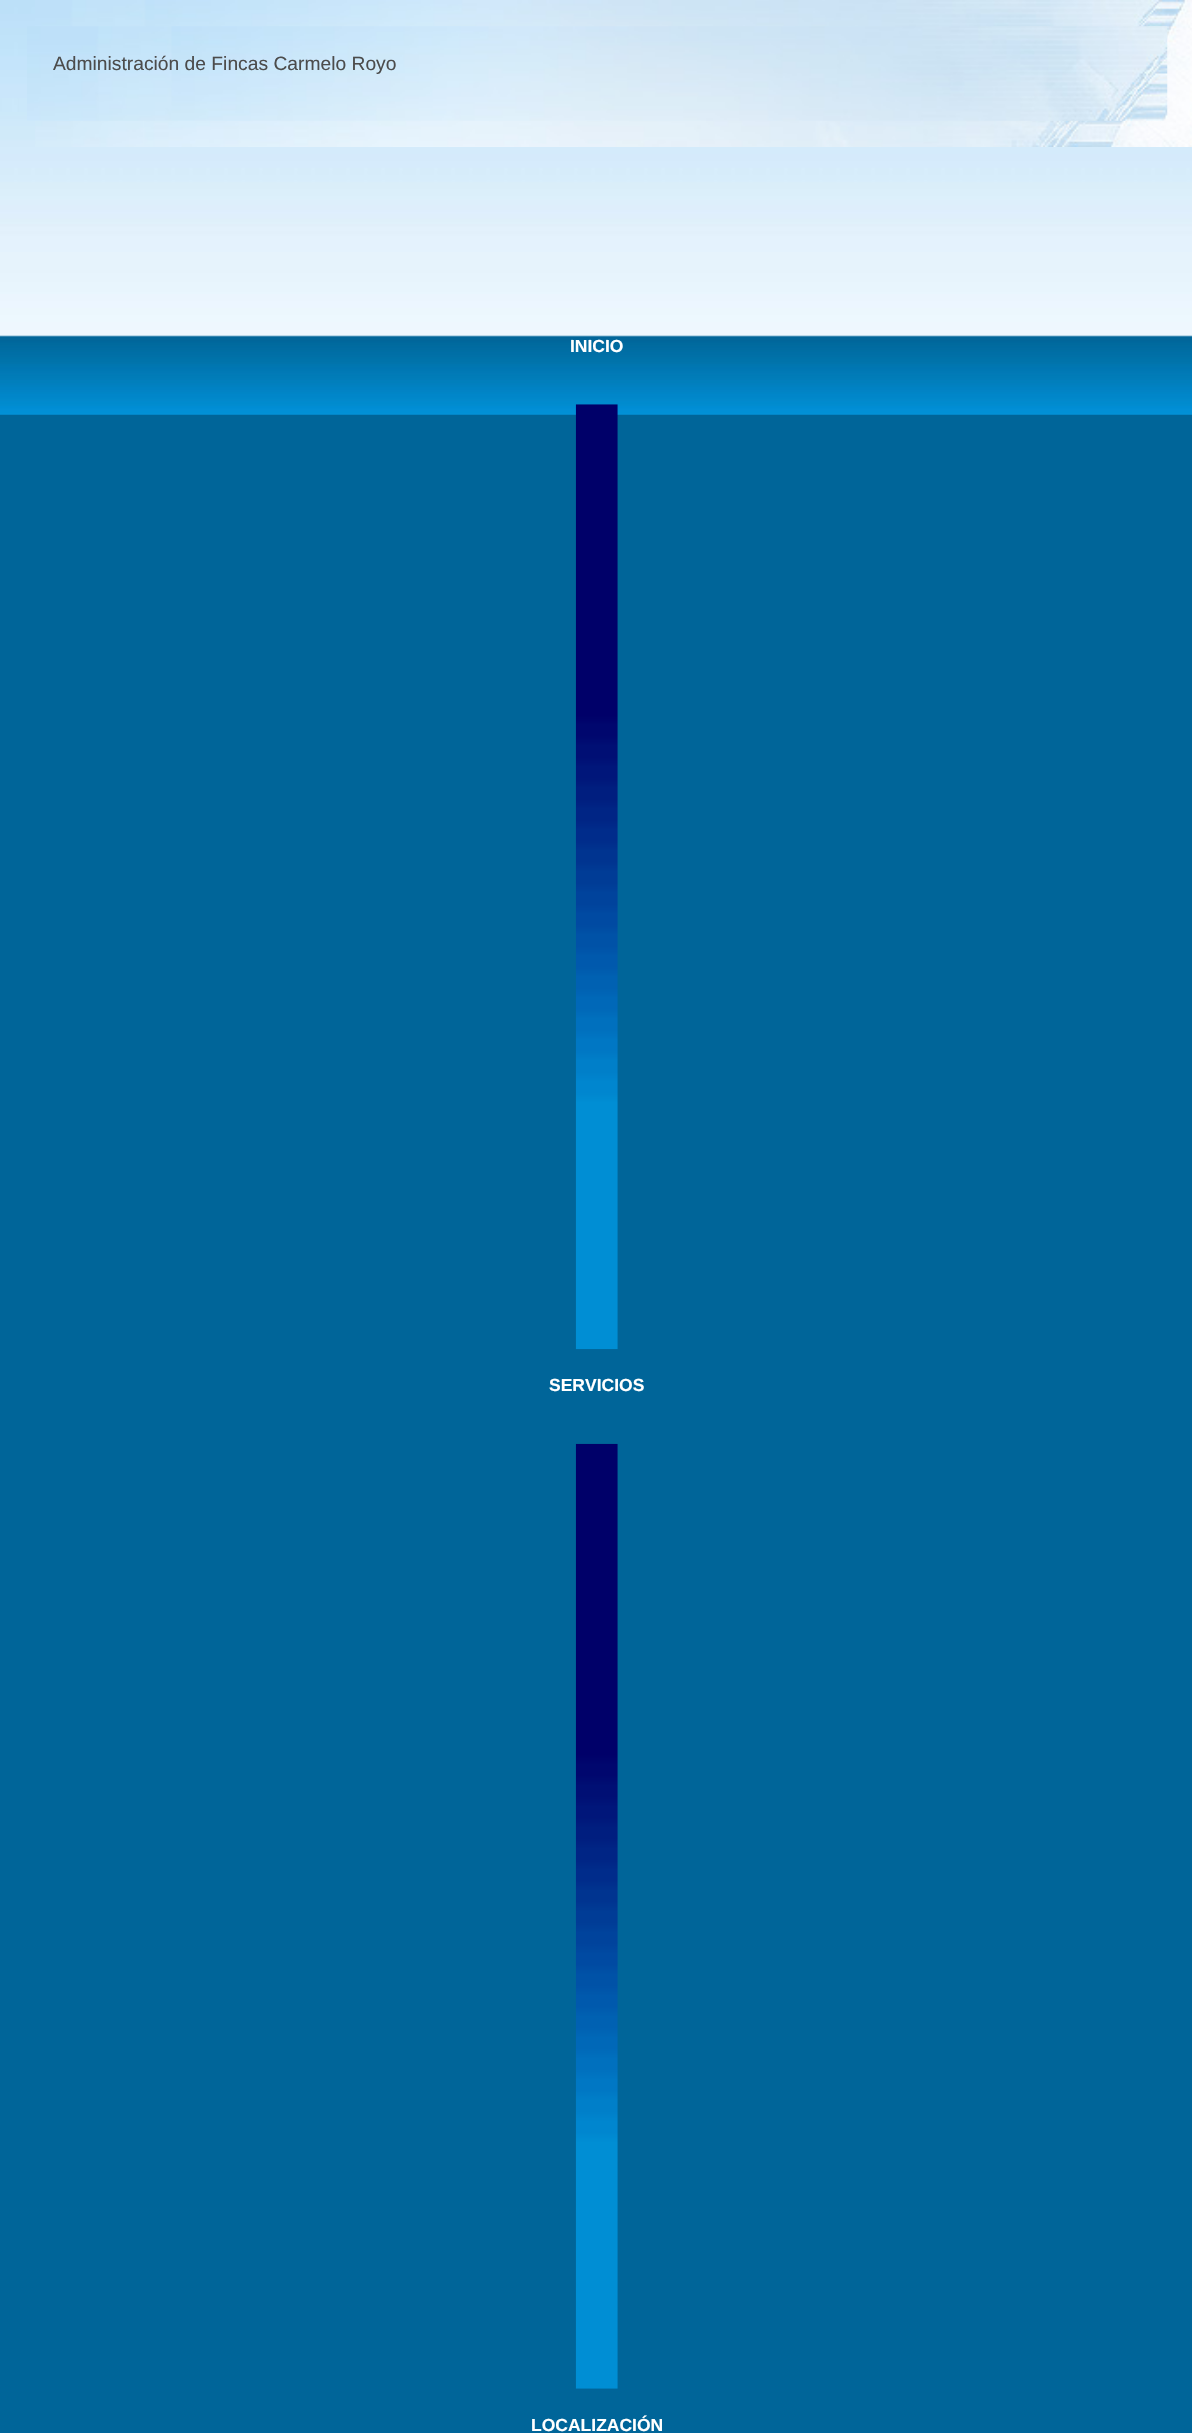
#include "include/core/SkBlurTypes.h"
#include "include/core/SkCanvas.h"
#include "include/core/SkData.h"
#include "include/core/SkFont.h"
#include "include/core/SkFontMgr.h"
#include "include/core/SkImage.h"
#include "include/core/SkMaskFilter.h"
#include "include/core/SkPaint.h"
#include "include/core/SkPathBuilder.h"
#include "include/core/SkTextBlob.h"
#include "include/effects/SkDashPathEffect.h"
#include "include/effects/SkGradientShader.h"
#include "include/utils/SkParsePath.h"

extern sk_sp<SkFontMgr> fontMgr;

void draw(SkCanvas* canvas) {
    SkPaint p;
    p.setAntiAlias(true);
    auto font = [&](const char* family, int weight, float size, bool italic = false) {
        SkFontStyle style(weight, SkFontStyle::kNormal_Width,
            italic ? SkFontStyle::kItalic_Slant : SkFontStyle::kUpright_Slant);
        SkFont result(fontMgr->matchFamilyStyle(family, style), size);
        result.setSubpixel(true);
        return result;
    };
    auto drawPhoto = [&](const char* path, float l, float t, float r, float b) {
        auto image = SkImages::DeferredFromEncodedData(SkData::MakeFromFileName(path));
        canvas->drawImageRect(image, SkRect::MakeLTRB(l, t, r, b), SkSamplingOptions());
    };
    canvas->clear(0xFF006599);
    drawPhoto("media/1.png", 0, 0, 1192, 415);
    drawPhoto("media/2.png", 35, 0, 1192, 147);
    drawPhoto("media/3.png", 27, 26, 1168, 121);
    auto font1 = font("Liberation Sans", 400, 19.25f);
    p.setColor(0xFF4C4C4C);
    canvas->drawString("Administración de Fincas Carmelo Royo", 53, 70, font1, p);
    auto font2 = font("Liberation Sans", 700, 17.5f);
    p.setColor(0xFFFFFFFF);
    canvas->drawString("INICIO", 570, 352, font2, p);
    drawPhoto("media/4.png", 575, 404, 618, 1350);
    canvas->drawString("SERVICIOS", 549, 1391, font2, p);
    drawPhoto("media/5.png", 575, 1443, 618, 2389);
    canvas->drawString("LOCALIZACIÓN", 531, 2431, font2, p);
}
